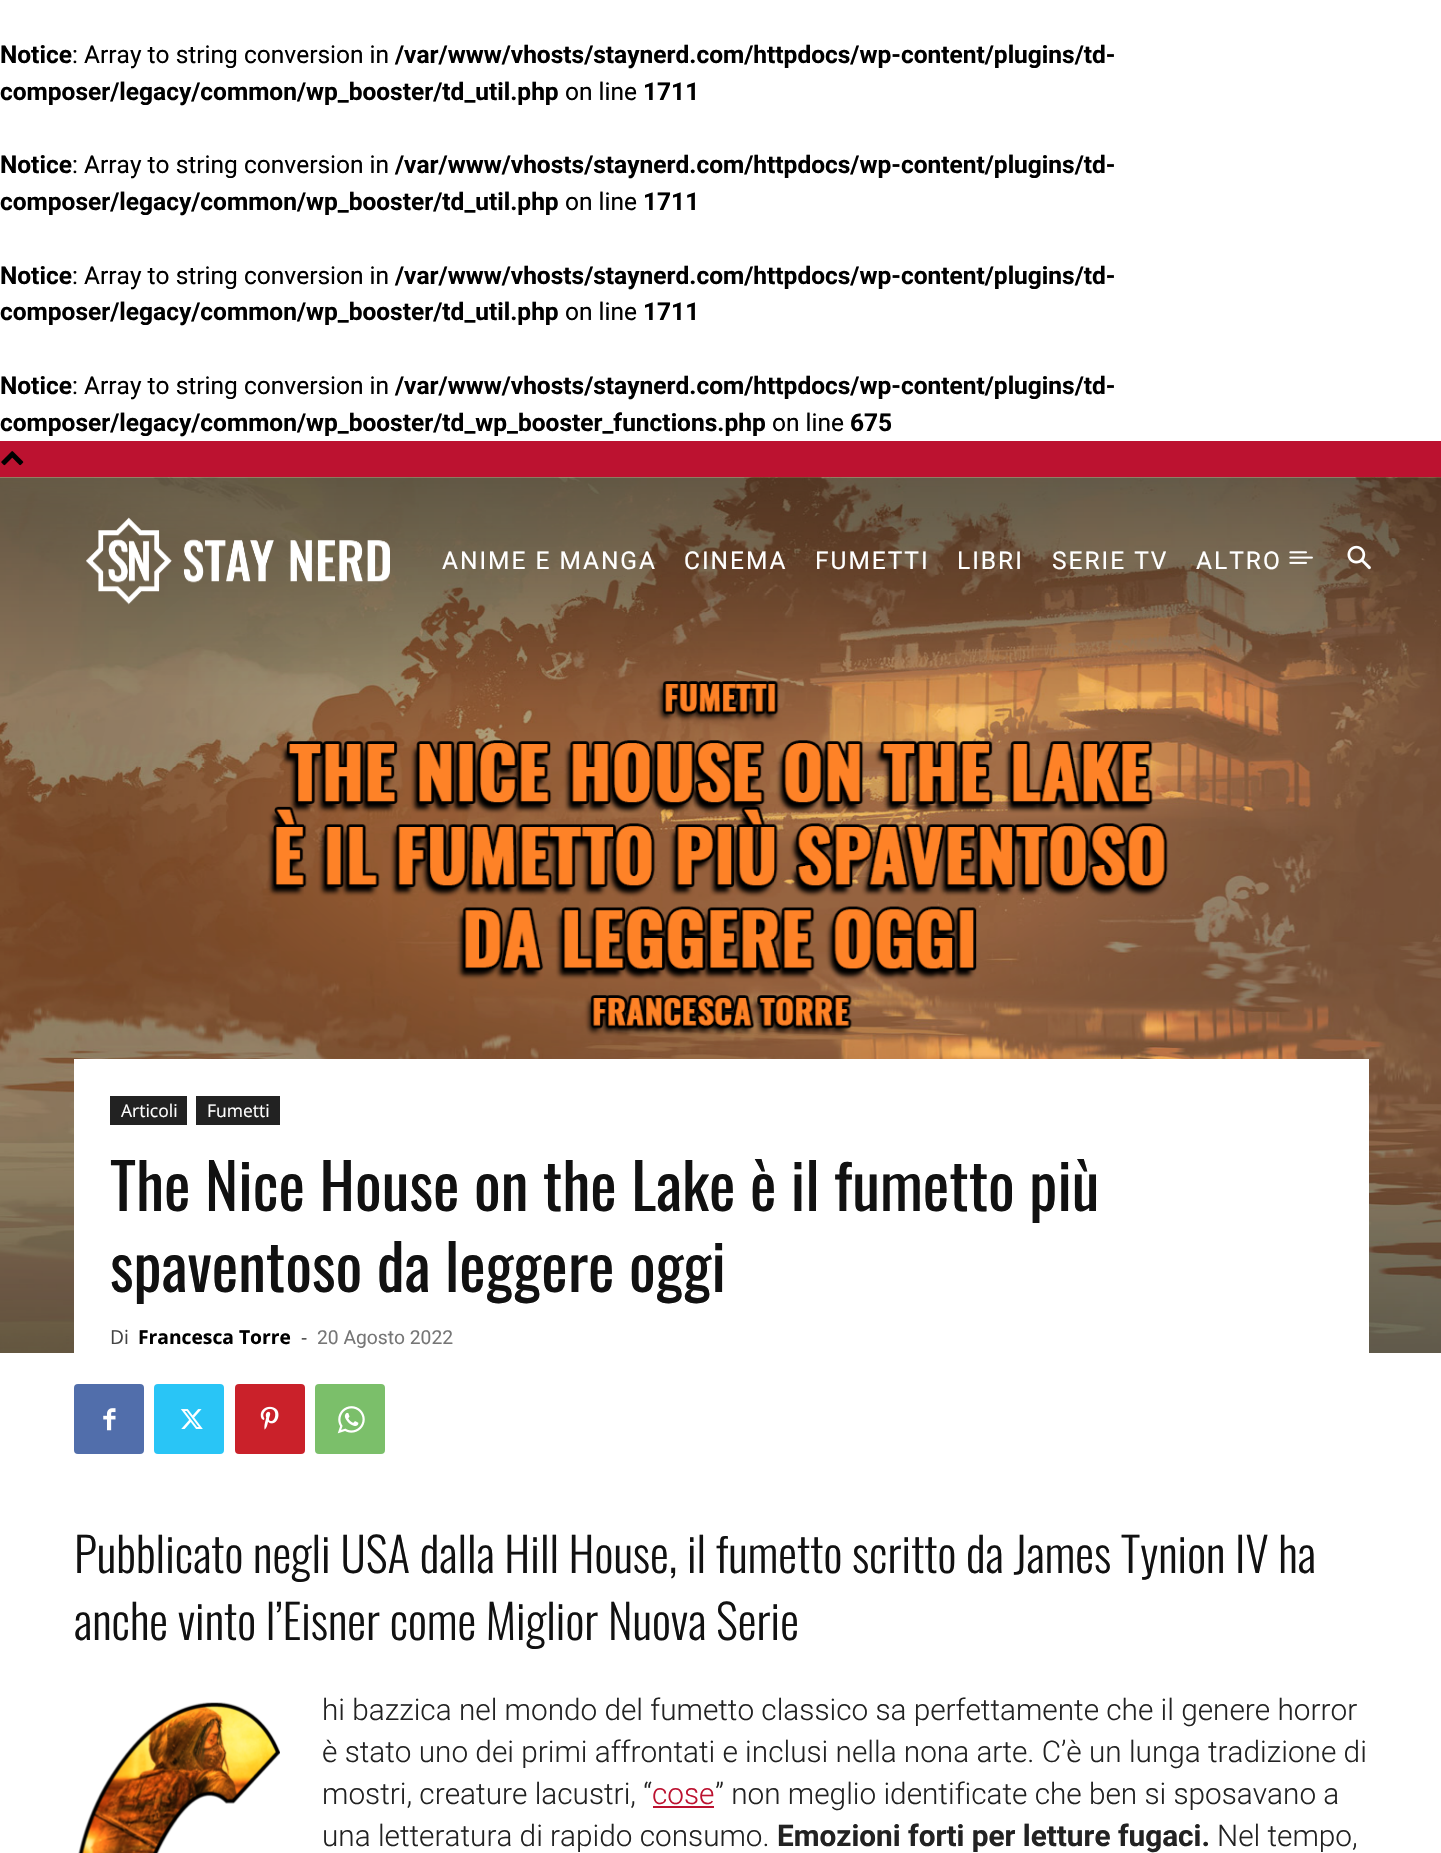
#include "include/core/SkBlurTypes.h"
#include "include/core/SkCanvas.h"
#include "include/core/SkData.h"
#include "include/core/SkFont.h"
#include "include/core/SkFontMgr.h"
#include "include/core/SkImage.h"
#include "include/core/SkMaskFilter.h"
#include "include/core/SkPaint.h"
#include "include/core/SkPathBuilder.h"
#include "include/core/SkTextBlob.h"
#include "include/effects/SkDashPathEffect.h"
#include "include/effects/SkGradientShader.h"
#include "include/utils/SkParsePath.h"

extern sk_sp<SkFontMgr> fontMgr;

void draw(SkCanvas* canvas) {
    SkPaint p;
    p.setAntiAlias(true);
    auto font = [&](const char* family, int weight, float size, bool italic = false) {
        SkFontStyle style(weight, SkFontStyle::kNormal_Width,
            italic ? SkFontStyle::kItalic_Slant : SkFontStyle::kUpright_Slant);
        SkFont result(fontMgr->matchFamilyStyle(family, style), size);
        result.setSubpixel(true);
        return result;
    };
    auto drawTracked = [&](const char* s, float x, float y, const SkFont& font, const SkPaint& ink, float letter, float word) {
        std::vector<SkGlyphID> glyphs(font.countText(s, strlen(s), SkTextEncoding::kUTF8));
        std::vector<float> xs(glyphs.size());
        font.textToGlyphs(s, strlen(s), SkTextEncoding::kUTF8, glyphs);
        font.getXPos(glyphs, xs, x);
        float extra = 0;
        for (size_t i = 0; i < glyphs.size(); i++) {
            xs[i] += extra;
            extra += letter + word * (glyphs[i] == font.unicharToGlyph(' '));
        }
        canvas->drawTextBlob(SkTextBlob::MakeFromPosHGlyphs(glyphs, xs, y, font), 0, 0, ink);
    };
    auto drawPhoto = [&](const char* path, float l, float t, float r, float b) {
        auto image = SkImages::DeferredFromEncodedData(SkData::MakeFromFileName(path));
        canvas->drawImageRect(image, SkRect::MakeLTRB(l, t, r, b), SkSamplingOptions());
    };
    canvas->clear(0xFFFFFFFF);
    auto font1 = font("Roboto", 700, 24.5f);
    p.setColor(0xFF000000);
    canvas->drawString("Notice", 0, 63, font1, p);
    auto font2 = font("Roboto", 400, 24.5f);
    canvas->drawString(": Array to string conversion in", 72, 63, font2, p);
    canvas->drawString("/var/www/vhosts/staynerd.com/httpdocs/wp-content/plugins/td-", 395, 63, font1, p);
    canvas->drawString("composer/legacy/common/wp_booster/td_util.php", 0, 100, font1, p);
    canvas->drawString("on line", 565, 100, font2, p);
    canvas->drawString("1711", 643, 100, font1, p);
    canvas->drawString("Notice", 0, 173, font1, p);
    canvas->drawString(": Array to string conversion in", 72, 173, font2, p);
    canvas->drawString("/var/www/vhosts/staynerd.com/httpdocs/wp-content/plugins/td-", 395, 173, font1, p);
    canvas->drawString("composer/legacy/common/wp_booster/td_util.php", 0, 210, font1, p);
    canvas->drawString("on line", 565, 210, font2, p);
    canvas->drawString("1711", 643, 210, font1, p);
    canvas->drawString("Notice", 0, 284, font1, p);
    canvas->drawString(": Array to string conversion in", 72, 284, font2, p);
    canvas->drawString("/var/www/vhosts/staynerd.com/httpdocs/wp-content/plugins/td-", 395, 284, font1, p);
    canvas->drawString("composer/legacy/common/wp_booster/td_util.php", 0, 320, font1, p);
    canvas->drawString("on line", 565, 320, font2, p);
    canvas->drawString("1711", 643, 320, font1, p);
    canvas->drawString("Notice", 0, 394, font1, p);
    canvas->drawString(": Array to string conversion in", 72, 394, font2, p);
    canvas->drawString("/var/www/vhosts/staynerd.com/httpdocs/wp-content/plugins/td-", 395, 394, font1, p);
    canvas->drawString("composer/legacy/common/wp_booster/td_wp_booster_functions.php", 0, 431, font1, p);
    canvas->drawString("on line", 772, 431, font2, p);
    canvas->drawString("675", 850, 431, font1, p);
    p.setColor(0xFFBC1230);
    canvas->drawRect(SkRect::MakeLTRB(0, 441, 1441, 477), p);
    drawPhoto("media/1.png", 1, 451, 24, 466);
    drawPhoto("media/5.png", 0, 477, 1441, 1353);
    drawPhoto("media/2.png", 86, 517, 390, 605);
    p.setColor(0xFFFFFFFF);
    {
        const struct { const char* s; float x, y; } items[] = {
            {"ANIME E MANGA", 442, 569},
            {"CINEMA", 684, 569},
            {"FUMETTI", 815, 569},
            {"LIBRI", 957, 569},
            {"SERIE TV", 1052, 569},
            {"ALTRO", 1196, 569},
        };
        for (auto [s, x, y] : items) {
            drawTracked(s, x, y, font2, p, 2, 0);
        }
    }
    drawPhoto("media/3.png", 1289, 551, 1313, 564);
    drawPhoto("media/4.png", 1347, 545, 1371, 570);
    canvas->drawRect(SkRect::MakeLTRB(74, 1059, 1369, 1353), p);
    p.setColor(0xFF222222);
    canvas->drawRect(SkRect::MakeLTRB(110, 1096, 187, 1125), p);
    auto font3 = font("Open Sans", 400, 17.5f);
    p.setColor(0xFFFFFFFF);
    canvas->drawString("Articoli", 121, 1117, font3, p);
    p.setColor(0xFF222222);
    canvas->drawRect(SkRect::MakeLTRB(196, 1096, 280, 1125), p);
    p.setColor(0xFFFFFFFF);
    canvas->drawString("Fumetti", 207, 1117, font3, p);
    auto font4 = font("Oswald", 400, 63);
    p.setColor(0xFF111111);
    canvas->drawString("The Nice House on the Lake è il fumetto più", 110, 1211, font4, p);
    canvas->drawString("spaventoso da leggere oggi", 110, 1292, font4, p);
    auto font5 = font("Open Sans", 400, 19.25f);
    p.setColor(0xFF444444);
    canvas->drawString("Di", 110, 1344, font5, p);
    auto font6 = font("Open Sans", 700, 19.25f);
    p.setColor(0xFF000000);
    canvas->drawString("Francesca Torre", 138, 1344, font6, p);
    p.setColor(0xFF444444);
    canvas->drawString("-", 301, 1344, font5, p);
    auto font7 = font("Roboto", 400, 19.25f);
    p.setColor(0xFF767676);
    canvas->drawString("20 Agosto 2022", 317, 1344, font7, p);
    p.setColor(0xFF516EAB);
    canvas->drawRoundRect(SkRect::MakeLTRB(74, 1384, 144, 1454), 4, 4, p);
    drawPhoto("media/6.png", 103, 1408, 116, 1431);
    p.setColor(0xFF29C5F6);
    canvas->drawRoundRect(SkRect::MakeLTRB(154, 1384, 224, 1454), 4, 4, p);
    drawPhoto("media/7.png", 180, 1409, 203, 1429);
    p.setColor(0xFFCA212A);
    canvas->drawRoundRect(SkRect::MakeLTRB(235, 1384, 305, 1454), 4, 4, p);
    drawPhoto("media/8.png", 260, 1406, 279, 1430);
    p.setColor(0xFF7BBF6A);
    canvas->drawRoundRect(SkRect::MakeLTRB(315, 1384, 385, 1454), 4, 4, p);
    drawPhoto("media/9.png", 337, 1406, 365, 1434);
    auto font8 = font("Oswald", 300, 47.25f);
    p.setColor(0xFF111111);
    canvas->drawString("Pubblicato negli USA dalla Hill House, il fumetto scritto da James Tynion IV ha", 74, 1573, font8, p);
    canvas->drawString("anche vinto l’Eisner come Miglior Nuova Serie", 74, 1640, font8, p);
    drawPhoto("media/10.png", 78, 1702, 280, 1853);
    auto font9 = font("Roboto", 300, 29.75f);
    p.setColor(0xFF222222);
    {
        const struct { const char* s; float x, y; } items[] = {
            {"hi bazzica nel mondo del fumetto classico sa perfettamente che il genere horror", 322, 1720},
            {"è stato uno dei primi affrontati e inclusi nella nona arte. C’è un lunga tradizione di", 322, 1762},
            {"mostri, creature lacustri, “", 322, 1804},
        };
        for (auto [s, x, y] : items) {
            canvas->drawString(s, x, y, font9, p);
        }
    }
    p.setColor(0xFFBC1230);
    canvas->drawString("cose", 652, 1804, font9, p);
    canvas->drawRect(SkRect::MakeLTRB(653, 1806, 714, 1808), p);
    p.setColor(0xFF222222);
    canvas->drawString("” non meglio identificate che ben si sposavano a", 715, 1804, font9, p);
    canvas->drawString("una letteratura di rapido consumo.", 322, 1846, font9, p);
    auto font10 = font("Roboto", 700, 29.75f);
    canvas->drawString("Emozioni forti per letture fugaci.", 777, 1846, font10, p);
    canvas->drawString("Nel tempo,", 1217, 1846, font9, p);
}
